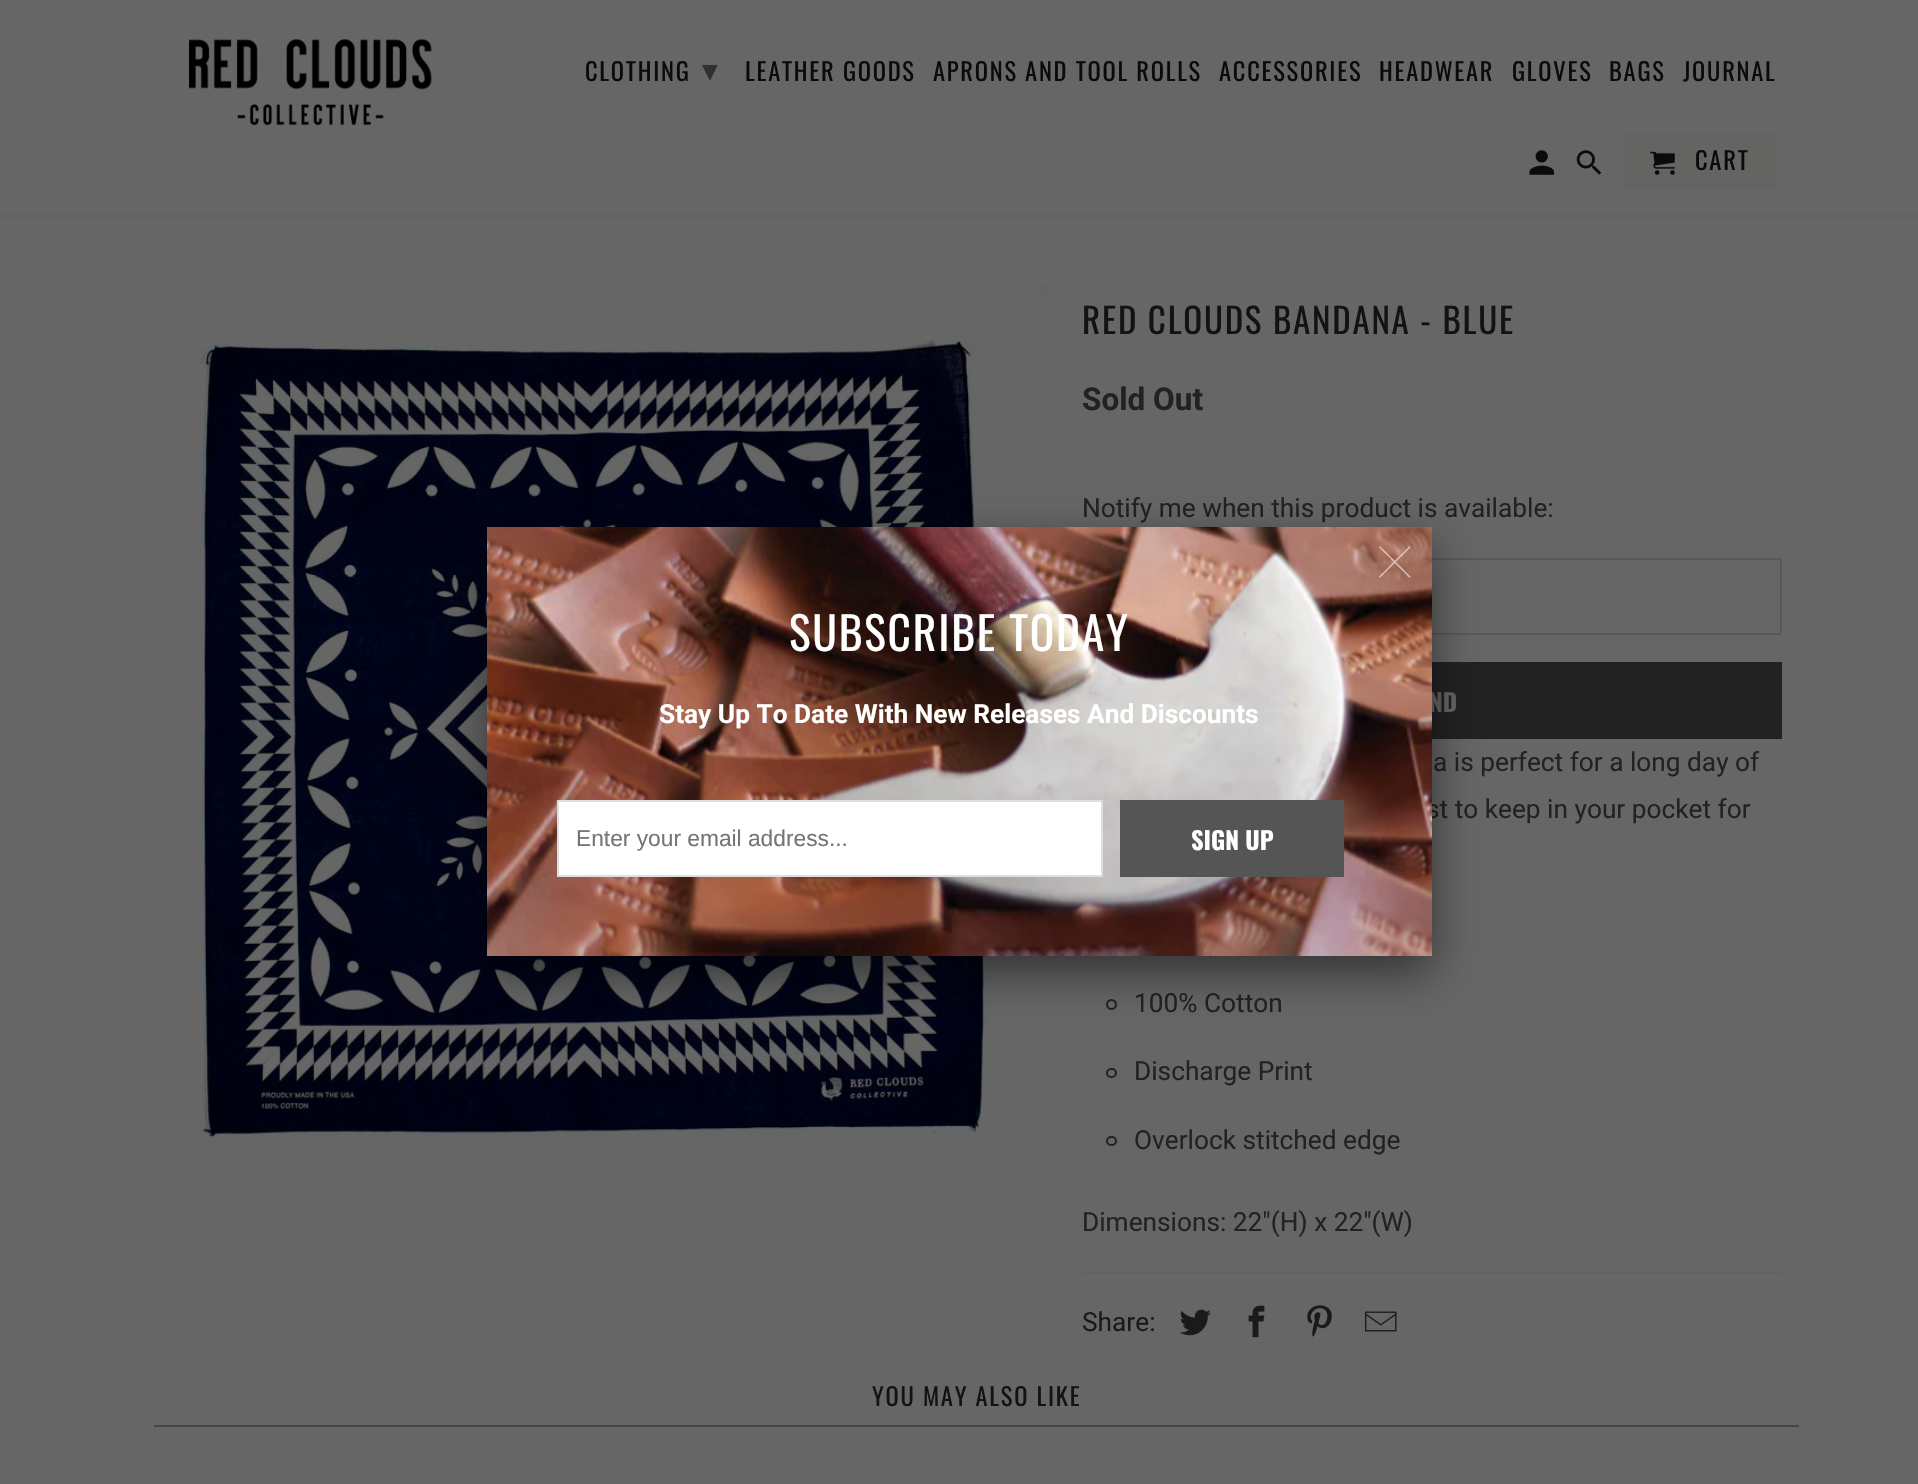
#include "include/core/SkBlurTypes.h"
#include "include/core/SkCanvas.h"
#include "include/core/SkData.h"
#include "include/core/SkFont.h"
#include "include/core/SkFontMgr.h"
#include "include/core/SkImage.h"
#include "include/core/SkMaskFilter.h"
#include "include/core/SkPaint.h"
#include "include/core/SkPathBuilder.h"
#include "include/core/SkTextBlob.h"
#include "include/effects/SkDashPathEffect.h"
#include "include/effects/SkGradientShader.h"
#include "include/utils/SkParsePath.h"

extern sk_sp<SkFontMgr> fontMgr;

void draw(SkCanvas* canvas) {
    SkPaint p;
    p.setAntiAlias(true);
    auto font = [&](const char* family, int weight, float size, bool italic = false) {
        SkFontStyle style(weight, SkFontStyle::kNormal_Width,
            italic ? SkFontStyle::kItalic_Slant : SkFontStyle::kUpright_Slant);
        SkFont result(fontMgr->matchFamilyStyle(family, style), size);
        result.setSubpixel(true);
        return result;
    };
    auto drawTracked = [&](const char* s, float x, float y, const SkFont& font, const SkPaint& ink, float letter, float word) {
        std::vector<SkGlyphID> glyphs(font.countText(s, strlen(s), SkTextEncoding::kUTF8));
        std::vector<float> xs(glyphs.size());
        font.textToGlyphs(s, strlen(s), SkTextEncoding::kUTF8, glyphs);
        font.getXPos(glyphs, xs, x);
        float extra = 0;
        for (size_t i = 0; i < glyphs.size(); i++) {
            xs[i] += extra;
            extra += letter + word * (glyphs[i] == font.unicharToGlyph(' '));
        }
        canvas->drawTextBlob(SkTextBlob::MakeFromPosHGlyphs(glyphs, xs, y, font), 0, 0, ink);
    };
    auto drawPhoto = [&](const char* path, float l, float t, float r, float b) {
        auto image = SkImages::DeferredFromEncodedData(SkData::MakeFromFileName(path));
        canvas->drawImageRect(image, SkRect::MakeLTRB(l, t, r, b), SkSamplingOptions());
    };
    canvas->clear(0xFF666666);
    p.setColor(0xFF626262);
    canvas->drawRect(SkRect::MakeLTRB(0, 215, 1918, 217), p);
    drawPhoto("media/1.png", 189, 39, 432, 126);
    auto font1 = font("Oswald", 400, 24.5f);
    p.setColor(0xFF0B0B0B);
    drawTracked("CLOTHING", 585, 81, font1, p, 1.75f, 0);
    auto font2 = font("DejaVu Sans", 400, 31.5f);
    p.setColor(0xFF303030);
    drawTracked("▾", 702, 81, font2, p, 1.75f, 0);
    p.setColor(0xFF0B0B0B);
    {
        const struct { const char* s; float x, y; } items[] = {
            {"LEATHER GOODS", 745, 81},
            {"APRONS AND TOOL ROLLS", 933, 81},
            {"ACCESSORIES", 1219, 81},
            {"HEADWEAR", 1379, 81},
            {"GLOVES", 1512, 81},
            {"BAGS", 1609, 81},
            {"JOURNAL", 1683, 81},
        };
        for (auto [s, x, y] : items) {
            drawTracked(s, x, y, font1, p, 1.75f, 0);
        }
    }
    drawPhoto("media/2.png", 1529, 150, 1554, 175);
    drawPhoto("media/3.png", 1576, 150, 1602, 175);
    p.setColor(0xFF646462);
    canvas->drawRect(SkRect::MakeLTRB(1624, 133, 1776, 189), p);
    drawPhoto("media/4.png", 1650, 151, 1675, 175);
    p.setColor(0xFF0B0B0B);
    drawTracked("CART", 1695, 170, font1, p, 1.75f, 0);
    drawPhoto("media/5.png", 137, 285, 1047, 1177);
    auto font3 = font("Oswald", 400, 35);
    p.setColor(0xFF131313);
    drawTracked("RED CLOUDS BANDANA - BLUE", 1082, 334, font3, p, 1.75f, 0);
    auto font4 = font("Roboto", 700, 31.5f);
    p.setColor(0xFF222222);
    canvas->drawString("Sold Out", 1082, 410, font4, p);
    auto font5 = font("Roboto", 400, 26.25f);
    canvas->drawString("Notify me when this product is available:", 1082, 517, font5, p);
    p.setStyle(SkPaint::kStroke_Style);
    p.setStrokeWidth(2);
    p.setColor(0xFF585A5A);
    canvas->drawRect(SkRect::MakeLTRB(1083, 559, 1781, 634), p);
    p.setStyle(SkPaint::kFill_Style);
    p.setColor(0xFF222222);
    canvas->drawRect(SkRect::MakeLTRB(1432, 662, 1782, 739), p);
    auto font6 = font("Oswald", 700, 24.5f);
    p.setColor(0xFF666666);
    canvas->drawString("ND", 1429, 712, font6, p);
    p.setColor(0xFF222222);
    canvas->drawString("a is perfect for a long day of", 1433, 771, font5, p);
    canvas->drawString("st to keep in your pocket for", 1426, 818, font5, p);
    p.setStyle(SkPaint::kStroke_Style);
    canvas->drawCircle(1111.5f, 1004.5f, 4.5f, p);
    p.setStyle(SkPaint::kFill_Style);
    canvas->drawString("100% Cotton", 1134, 1012, font5, p);
    p.setStyle(SkPaint::kStroke_Style);
    canvas->drawRoundRect(SkRect::MakeLTRB(1107, 1069, 1116, 1077), 4, 4, p);
    p.setStyle(SkPaint::kFill_Style);
    canvas->drawString("Discharge Print", 1134, 1080, font5, p);
    p.setStyle(SkPaint::kStroke_Style);
    canvas->drawRoundRect(SkRect::MakeLTRB(1107, 1137, 1116, 1145), 4, 4, p);
    p.setStyle(SkPaint::kFill_Style);
    canvas->drawString("Overlock stitched edge", 1134, 1149, font5, p);
    canvas->drawString("Dimensions: 22\"(H) x 22\"(W)", 1082, 1231, font5, p);
    p.setColor(0xFF626262);
    canvas->drawRect(SkRect::MakeLTRB(1082, 1272, 1782, 1274), p);
    p.setColor(0xFF1A1A1A);
    canvas->drawString("Share:", 1082, 1331, font5, p);
    drawPhoto("media/6.png", 1179, 1309, 1211, 1336);
    drawPhoto("media/7.png", 1248, 1305, 1265, 1338);
    drawPhoto("media/8.png", 1307, 1305, 1332, 1337);
    drawPhoto("media/9.png", 1365, 1311, 1397, 1332);
    p.setColor(0xFF474540);
    canvas->drawRect(SkRect::MakeLTRB(154, 1425, 1799, 1427), p);
    p.setColor(0xFF131313);
    drawTracked("YOU MAY ALSO LIKE", 872, 1406, font1, p, 1.75f, 0);
    drawPhoto("media/10.png", 487, 527, 1432, 956);
    canvas->save();
    canvas->clipPath(SkPathBuilder(SkPathFillType::kEvenOdd).moveTo(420, 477).lineTo(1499, 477).lineTo(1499, 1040).lineTo(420, 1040).close().moveTo(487, 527).lineTo(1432, 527).lineTo(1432, 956).lineTo(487, 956).close().detach(), true);
    p.setColor(0x80000000);
    p.setMaskFilter(SkMaskFilter::MakeBlur(kNormal_SkBlurStyle, 22));
    canvas->drawRect(SkRect::MakeLTRB(487, 544, 1432, 973), p);
    p.setMaskFilter(nullptr);
    canvas->restore();
    drawPhoto("media/11.png", 1379, 546, 1411, 578);
    auto font7 = font("Oswald", 400, 45.5f);
    p.setColor(0xFFFFFFFF);
    drawTracked("SUBSCRIBE TODAY", 789, 651, font7, p, 1.75f, 0);
    auto font8 = font("Roboto", 700, 26.25f);
    canvas->drawString("Stay Up To Date With New Releases And Discounts", 659, 723, font8, p);
    canvas->drawRect(SkRect::MakeLTRB(558, 801, 1102, 876), p);
    p.setStyle(SkPaint::kStroke_Style);
    p.setColor(0xFFDCE0E0);
    canvas->drawRect(SkRect::MakeLTRB(558, 801, 1102, 876), p);
    auto font9 = font("Liberation Sans", 400, 22.75f);
    p.setStyle(SkPaint::kFill_Style);
    p.setColor(0xFF757575);
    canvas->drawString("Enter your email address...", 576, 846, font9, p);
    p.setColor(0xFF555555);
    canvas->drawRect(SkRect::MakeLTRB(1120, 800, 1344, 877), p);
    p.setColor(0xFFFFFFFF);
    canvas->drawString("SIGN UP", 1191, 850, font6, p);
}
